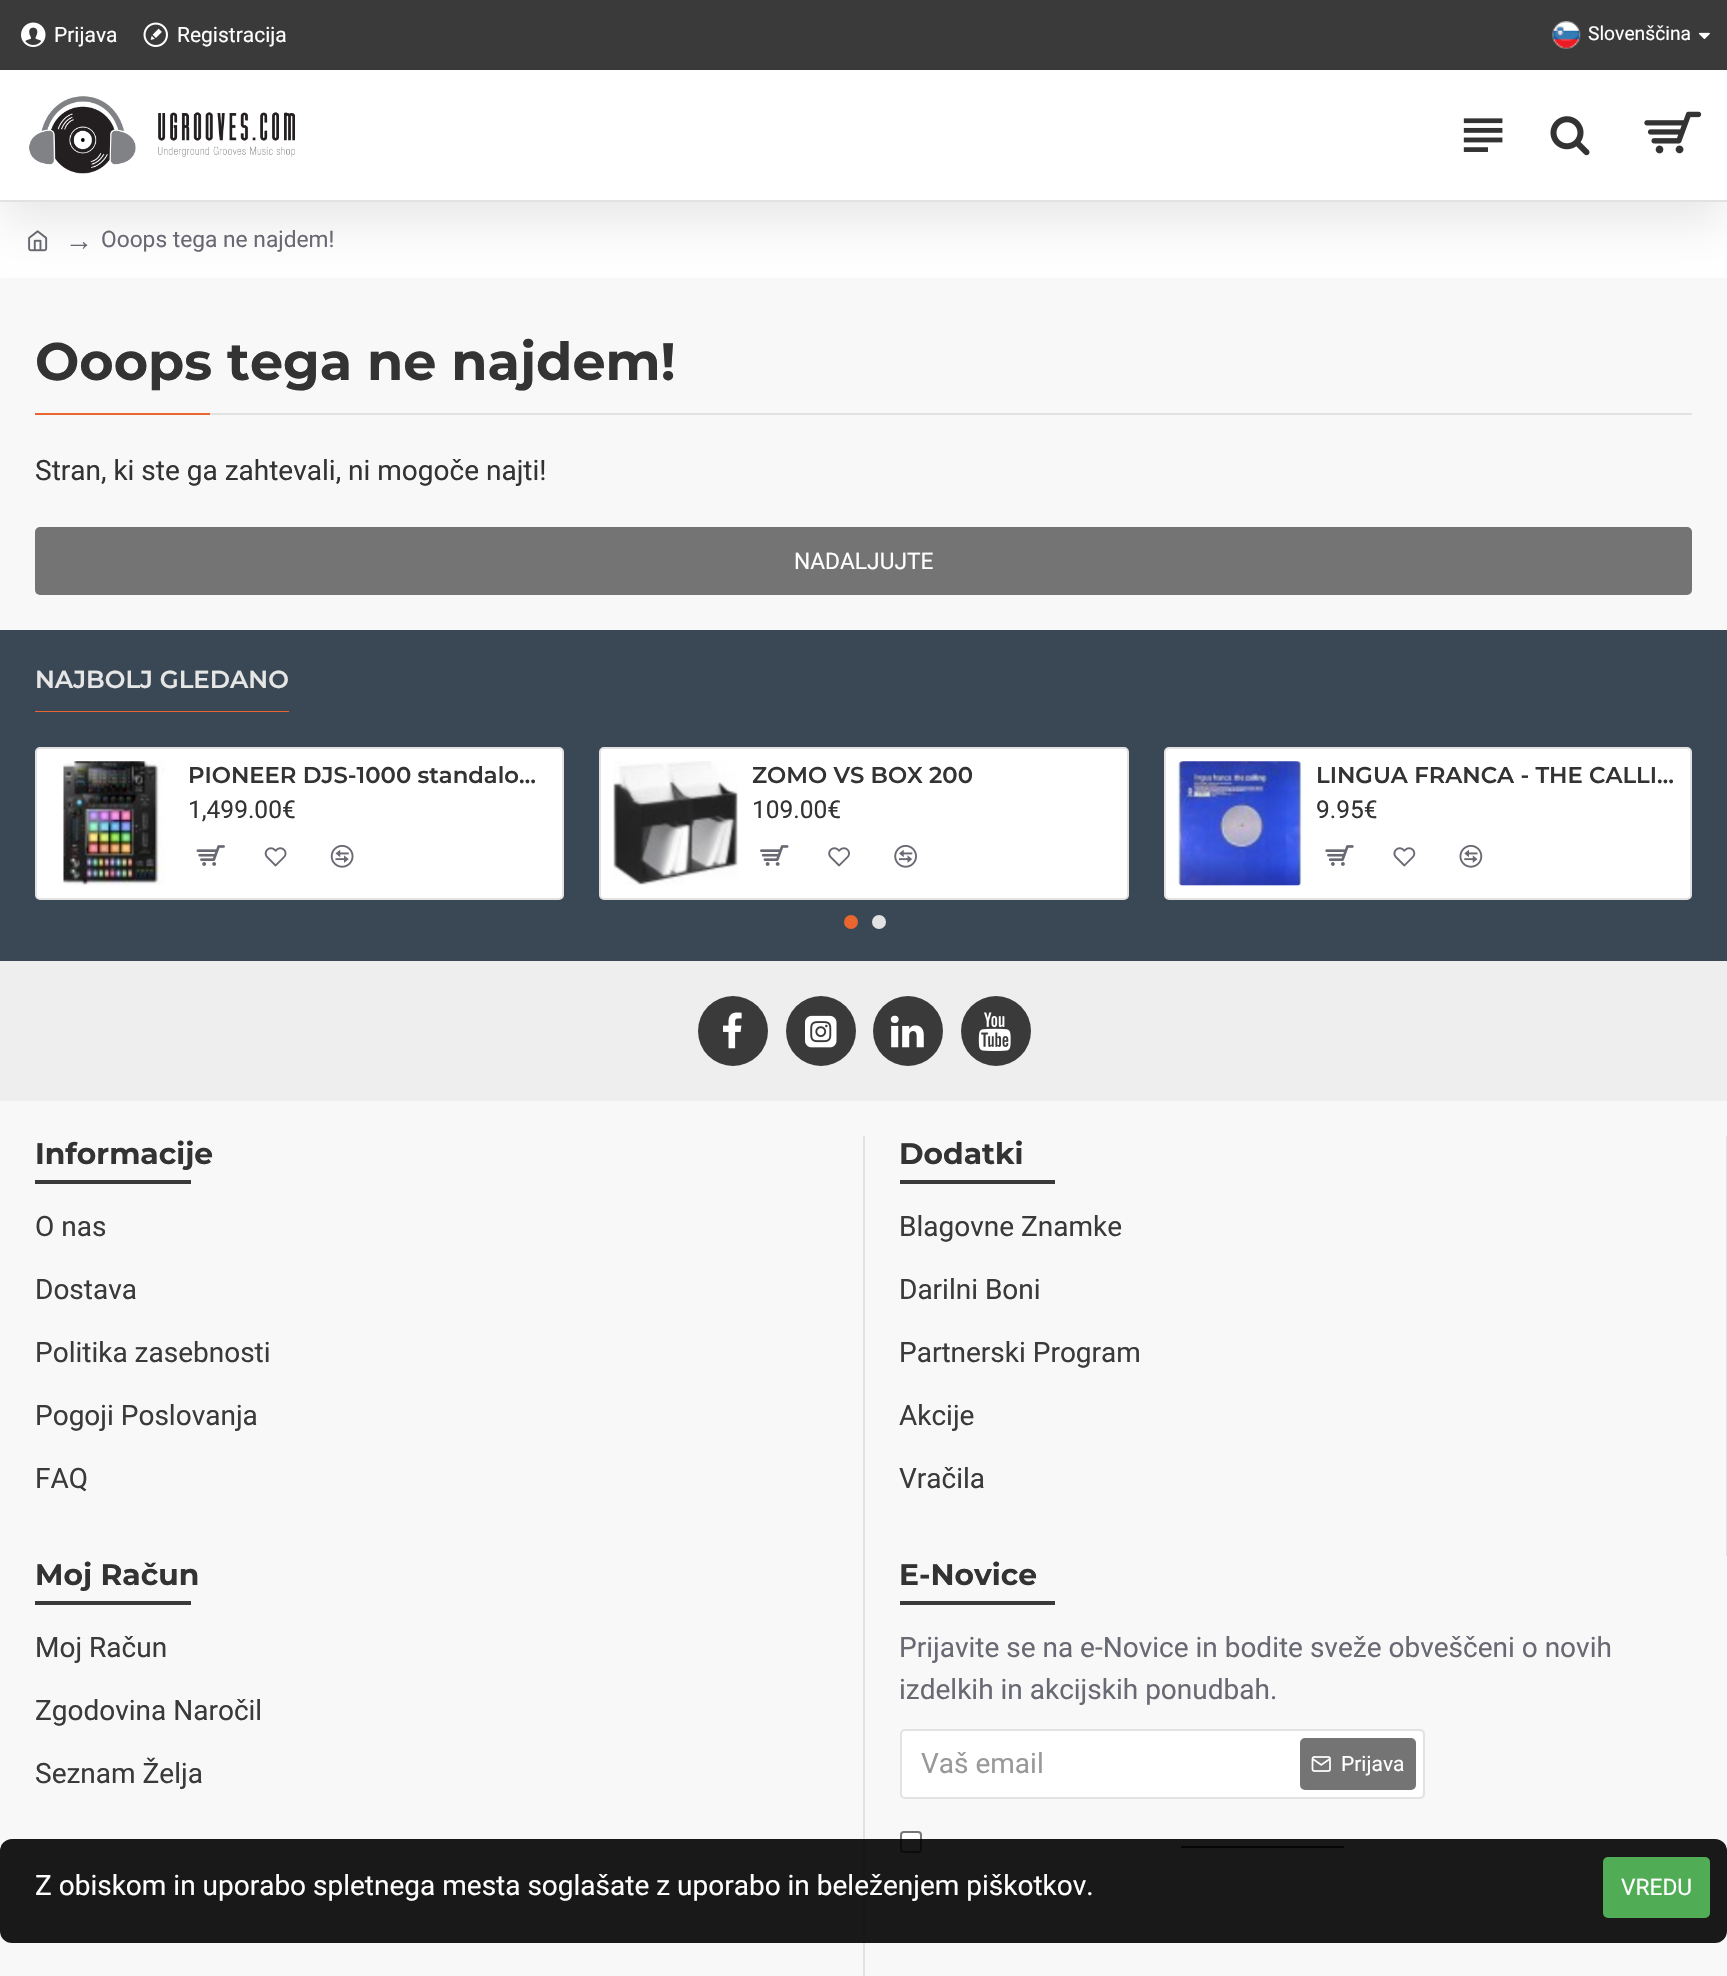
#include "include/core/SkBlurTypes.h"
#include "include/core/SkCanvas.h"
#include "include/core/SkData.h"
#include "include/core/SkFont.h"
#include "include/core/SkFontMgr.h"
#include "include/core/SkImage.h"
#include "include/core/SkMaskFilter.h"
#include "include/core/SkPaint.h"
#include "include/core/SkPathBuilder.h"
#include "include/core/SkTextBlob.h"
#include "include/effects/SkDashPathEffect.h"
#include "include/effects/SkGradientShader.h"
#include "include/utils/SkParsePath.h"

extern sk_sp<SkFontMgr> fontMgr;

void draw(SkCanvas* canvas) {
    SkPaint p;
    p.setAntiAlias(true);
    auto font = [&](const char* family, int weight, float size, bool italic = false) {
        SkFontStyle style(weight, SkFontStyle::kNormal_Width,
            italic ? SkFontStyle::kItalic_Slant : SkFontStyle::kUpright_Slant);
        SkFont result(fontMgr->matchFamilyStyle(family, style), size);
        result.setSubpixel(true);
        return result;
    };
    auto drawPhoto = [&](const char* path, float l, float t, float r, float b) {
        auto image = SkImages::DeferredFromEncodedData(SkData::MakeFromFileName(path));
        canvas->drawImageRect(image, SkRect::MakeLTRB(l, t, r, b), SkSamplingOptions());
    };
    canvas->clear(0xFFF8F8F8);
    p.setColor(0xFFFFFFFF);
    canvas->drawRect(SkRect::MakeLTRB(0, 202, 1727, 278), p);
    drawPhoto("media/9.png", 28, 230, 48, 252);
    p.setColor(0x1A000000);
    p.setMaskFilter(SkMaskFilter::MakeBlur(kNormal_SkBlurStyle, 26));
    canvas->drawRect(SkRect::MakeLTRB(0, 88, 1727, 219), p);
    p.setMaskFilter(nullptr);
    p.setColor(0xFFFFFFFF);
    canvas->drawRect(SkRect::MakeLTRB(0, 70, 1727, 200), p);
    p.setColor(0xFFE2E2E2);
    canvas->drawRect(SkRect::MakeLTRB(0, 200, 1727, 202), p);
    drawPhoto("media/1.png", 29, 96, 295, 174);
    drawPhoto("media/2.png", 1463, 118, 1503, 152);
    drawPhoto("media/3.png", 1550, 116, 1590, 156);
    drawPhoto("media/4.png", 1644, 111, 1702, 154);
    p.setColor(0xFF3A3A3A);
    canvas->drawRect(SkRect::MakeLTRB(0, 0, 1727, 70), p);
    drawPhoto("media/5.png", 21, 22, 46, 47);
    auto font1 = font("Roboto", 400, 21);
    p.setColor(0xFFFFFFFF);
    canvas->drawString("Prijava", 54, 42, font1, p);
    drawPhoto("media/6.png", 143, 22, 168, 47);
    canvas->drawString("Registracija", 177, 42, font1, p);
    drawPhoto("media/7.png", 1552, 21, 1581, 49);
    auto font2 = font("Roboto", 400, 19.25f);
    canvas->drawString("Slovenščina", 1588, 40, font2, p);
    drawPhoto("media/8.png", 1698, 32, 1710, 39);
    auto font3 = font("Liberation Serif", 400, 28);
    p.setColor(0xFF696973);
    canvas->drawString("→", 65, 250, font3, p);
    auto font4 = font("Roboto", 400, 22.75f);
    canvas->drawString("Ooops tega ne najdem!", 101, 247, font4, p);
    p.setColor(0xFFE2E2E2);
    canvas->drawRect(SkRect::MakeLTRB(210, 413, 1692, 415), p);
    auto font5 = font("Montserrat", 700, 52.5f);
    p.setColor(0xFF333333);
    canvas->drawString("Ooops tega ne najdem!", 35, 380, font5, p);
    p.setColor(0xFFE96631);
    canvas->drawRect(SkRect::MakeLTRB(35, 413, 210, 415), p);
    auto font6 = font("Roboto", 400, 28);
    p.setColor(0xFF333333);
    canvas->drawString("Stran, ki ste ga zahtevali, ni mogoče najti!", 35, 480, font6, p);
    p.setColor(0xFF747474);
    canvas->drawRoundRect(SkRect::MakeLTRB(35, 527, 1692, 595), 5, 5, p);
    p.setColor(0xFFFFFFFF);
    canvas->drawString("NADALJUJTE", 794, 569, font4, p);
    p.setColor(0xFF3A4754);
    canvas->drawRect(SkRect::MakeLTRB(0, 630, 1727, 961), p);
    p.setColor(0xFFE96631);
    canvas->drawRect(SkRect::MakeLTRB(35, 711, 289, 712), p);
    auto font7 = font("Montserrat", 600, 24.5f);
    p.setColor(0xFFE6E6E6);
    canvas->drawString("NAJBOLJ GLEDANO", 35, 688, font7, p);
    p.setColor(0xFFFFFFFF);
    canvas->drawRoundRect(SkRect::MakeLTRB(36, 748, 563, 899), 4, 4, p);
    p.setStyle(SkPaint::kStroke_Style);
    p.setStrokeWidth(2);
    p.setColor(0xFFE2E2E2);
    canvas->drawRoundRect(SkRect::MakeLTRB(36, 748, 563, 899), 4, 4, p);
    drawPhoto("media/10.png", 63, 761, 165, 886);
    auto font8 = font("Montserrat", 600, 22.75f);
    p.setStyle(SkPaint::kFill_Style);
    p.setColor(0xFF333333);
    canvas->drawString("PIONEER DJS-1000 standalo…", 188, 783, font8, p);
    auto font9 = font("Roboto", 400, 24.5f);
    canvas->drawString("1,499.00€", 188, 818, font9, p);
    drawPhoto("media/11.png", 196, 845, 225, 866);
    drawPhoto("media/12.png", 264, 847, 287, 867);
    drawPhoto("media/13.png", 330, 844, 354, 868);
    p.setColor(0xFFFFFFFF);
    canvas->drawRoundRect(SkRect::MakeLTRB(600, 748, 1128, 899), 4, 4, p);
    p.setStyle(SkPaint::kStroke_Style);
    p.setColor(0xFFE2E2E2);
    canvas->drawRoundRect(SkRect::MakeLTRB(600, 748, 1128, 899), 4, 4, p);
    drawPhoto("media/14.png", 613, 761, 739, 885);
    p.setStyle(SkPaint::kFill_Style);
    p.setColor(0xFF333333);
    canvas->drawString("ZOMO VS BOX 200", 752, 783, font8, p);
    canvas->drawString("109.00€", 752, 818, font9, p);
    drawPhoto("media/15.png", 760, 845, 789, 866);
    drawPhoto("media/16.png", 828, 847, 850, 867);
    drawPhoto("media/17.png", 894, 844, 917, 868);
    p.setColor(0xFFFFFFFF);
    canvas->drawRoundRect(SkRect::MakeLTRB(1165, 748, 1691, 899), 4, 4, p);
    p.setStyle(SkPaint::kStroke_Style);
    p.setColor(0xFFE2E2E2);
    canvas->drawRoundRect(SkRect::MakeLTRB(1165, 748, 1691, 899), 4, 4, p);
    drawPhoto("media/18.png", 1177, 761, 1302, 886);
    p.setStyle(SkPaint::kFill_Style);
    p.setColor(0xFF333333);
    canvas->drawString("LINGUA FRANCA - THE CALLI…", 1316, 783, font8, p);
    canvas->drawString("9.95€", 1316, 818, font9, p);
    drawPhoto("media/19.png", 1325, 845, 1354, 866);
    drawPhoto("media/20.png", 1393, 847, 1416, 867);
    drawPhoto("media/21.png", 1459, 844, 1483, 868);
    p.setColor(0xFFE96631);
    canvas->drawCircle(851, 922, 7, p);
    p.setColor(0xFFE2E2E2);
    canvas->drawCircle(879, 922, 7, p);
    p.setColor(0xFFEEEEEE);
    canvas->drawRect(SkRect::MakeLTRB(0, 961, 1727, 1101), p);
    p.setColor(0xFF3A3A3A);
    canvas->drawCircle(733, 1031, 35, p);
    drawPhoto("media/22.png", 723, 1012, 742, 1049);
    canvas->drawCircle(821, 1031, 35, p);
    drawPhoto("media/23.png", 805, 1015, 837, 1048);
    canvas->drawCircle(908, 1031, 35, p);
    drawPhoto("media/24.png", 890, 1015, 924, 1048);
    canvas->drawCircle(996, 1031, 35, p);
    drawPhoto("media/25.png", 978, 1012, 1011, 1051);
    p.setColor(0xFFE2E2E2);
    canvas->drawRect(SkRect::MakeLTRB(863, 1136, 865, 1976), p);
    auto font10 = font("Montserrat", 700, 29.75f);
    p.setColor(0xFF333333);
    canvas->drawString("Informacije", 35, 1164, font10, p);
    p.setColor(0xFF3A3A3A);
    canvas->drawRect(SkRect::MakeLTRB(35, 1180, 191, 1184), p);
    {
        const struct { const char* s; float x, y; } items[] = {
            {"O nas", 35, 1236},
            {"Dostava", 35, 1299},
            {"Politika zasebnosti", 35, 1362},
            {"Pogoji Poslovanja", 35, 1425},
            {"FAQ", 35, 1488},
        };
        for (auto [s, x, y] : items) {
            canvas->drawString(s, x, y, font6, p);
        }
    }
    p.setColor(0xFFE2E2E2);
    canvas->drawRect(SkRect::MakeLTRB(1726, 1136, 1727, 1556), p);
    p.setColor(0xFF333333);
    canvas->drawString("Dodatki", 899, 1164, font10, p);
    p.setColor(0xFF3A3A3A);
    canvas->drawRect(SkRect::MakeLTRB(900, 1180, 1055, 1184), p);
    {
        const struct { const char* s; float x, y; } items[] = {
            {"Blagovne Znamke", 899, 1236},
            {"Darilni Boni", 899, 1299},
            {"Partnerski Program", 899, 1362},
            {"Akcije", 899, 1425},
            {"Vračila", 899, 1488},
        };
        for (auto [s, x, y] : items) {
            canvas->drawString(s, x, y, font6, p);
        }
    }
    p.setColor(0xFF333333);
    canvas->drawString("Moj Račun", 35, 1585, font10, p);
    p.setColor(0xFF3A3A3A);
    canvas->drawRect(SkRect::MakeLTRB(35, 1601, 191, 1605), p);
    {
        const struct { const char* s; float x, y; } items[] = {
            {"Moj Račun", 35, 1657},
            {"Zgodovina Naročil", 35, 1720},
            {"Seznam Želja", 35, 1783},
        };
        for (auto [s, x, y] : items) {
            canvas->drawString(s, x, y, font6, p);
        }
    }
    p.setColor(0xFF333333);
    canvas->drawString("E-Novice", 899, 1585, font10, p);
    p.setColor(0xFF3A3A3A);
    canvas->drawRect(SkRect::MakeLTRB(900, 1601, 1055, 1605), p);
    p.setColor(0xFF696973);
    canvas->drawString("Prijavite se na e-Novice in bodite sveže obveščeni o novih", 899, 1657, font6, p);
    canvas->drawString("izdelkih in akcijskih ponudbah.", 899, 1699, font6, p);
    p.setColor(0xFFFFFFFF);
    canvas->drawRoundRect(SkRect::MakeLTRB(901, 1730, 1424, 1798), 4, 4, p);
    p.setStyle(SkPaint::kStroke_Style);
    p.setColor(0xFFE2E2E2);
    canvas->drawRoundRect(SkRect::MakeLTRB(901, 1730, 1424, 1798), 4, 4, p);
    p.setStyle(SkPaint::kFill_Style);
    p.setColor(0xFF999999);
    canvas->drawString("Vaš email", 921, 1773, font6, p);
    p.setColor(0xFF747474);
    canvas->drawRoundRect(SkRect::MakeLTRB(1300, 1738, 1416, 1790), 5, 5, p);
    drawPhoto("media/26.png", 1311, 1756, 1331, 1772);
    p.setColor(0xFFFFFFFF);
    canvas->drawString("Prijava", 1341, 1771, font1, p);
    canvas->drawRoundRect(SkRect::MakeLTRB(901, 1832, 921, 1852), 3, 3, p);
    p.setStyle(SkPaint::kStroke_Style);
    p.setColor(0xFF767676);
    canvas->drawRoundRect(SkRect::MakeLTRB(901, 1832, 921, 1852), 3, 3, p);
    p.setStyle(SkPaint::kFill_Style);
    p.setColor(0xFF3A3A3A);
    canvas->drawRect(SkRect::MakeLTRB(1181, 1846, 1344, 1848), p);
    p.setColor(0xE6000000);
    canvas->drawRoundRect(SkRect::MakeLTRB(0, 1839, 1727, 1943), 12, 12, p);
    p.setColor(0xFFFFFFFF);
    canvas->drawString("Z obiskom in uporabo spletnega mesta soglašate z uporabo in beleženjem piškotkov.", 35, 1895, font6, p);
    p.setColor(0xFF50AD55);
    canvas->drawRoundRect(SkRect::MakeLTRB(1603, 1857, 1710, 1918), 5, 5, p);
    p.setColor(0xFFFFFFFF);
    canvas->drawString("VREDU", 1621, 1895, font4, p);
}
